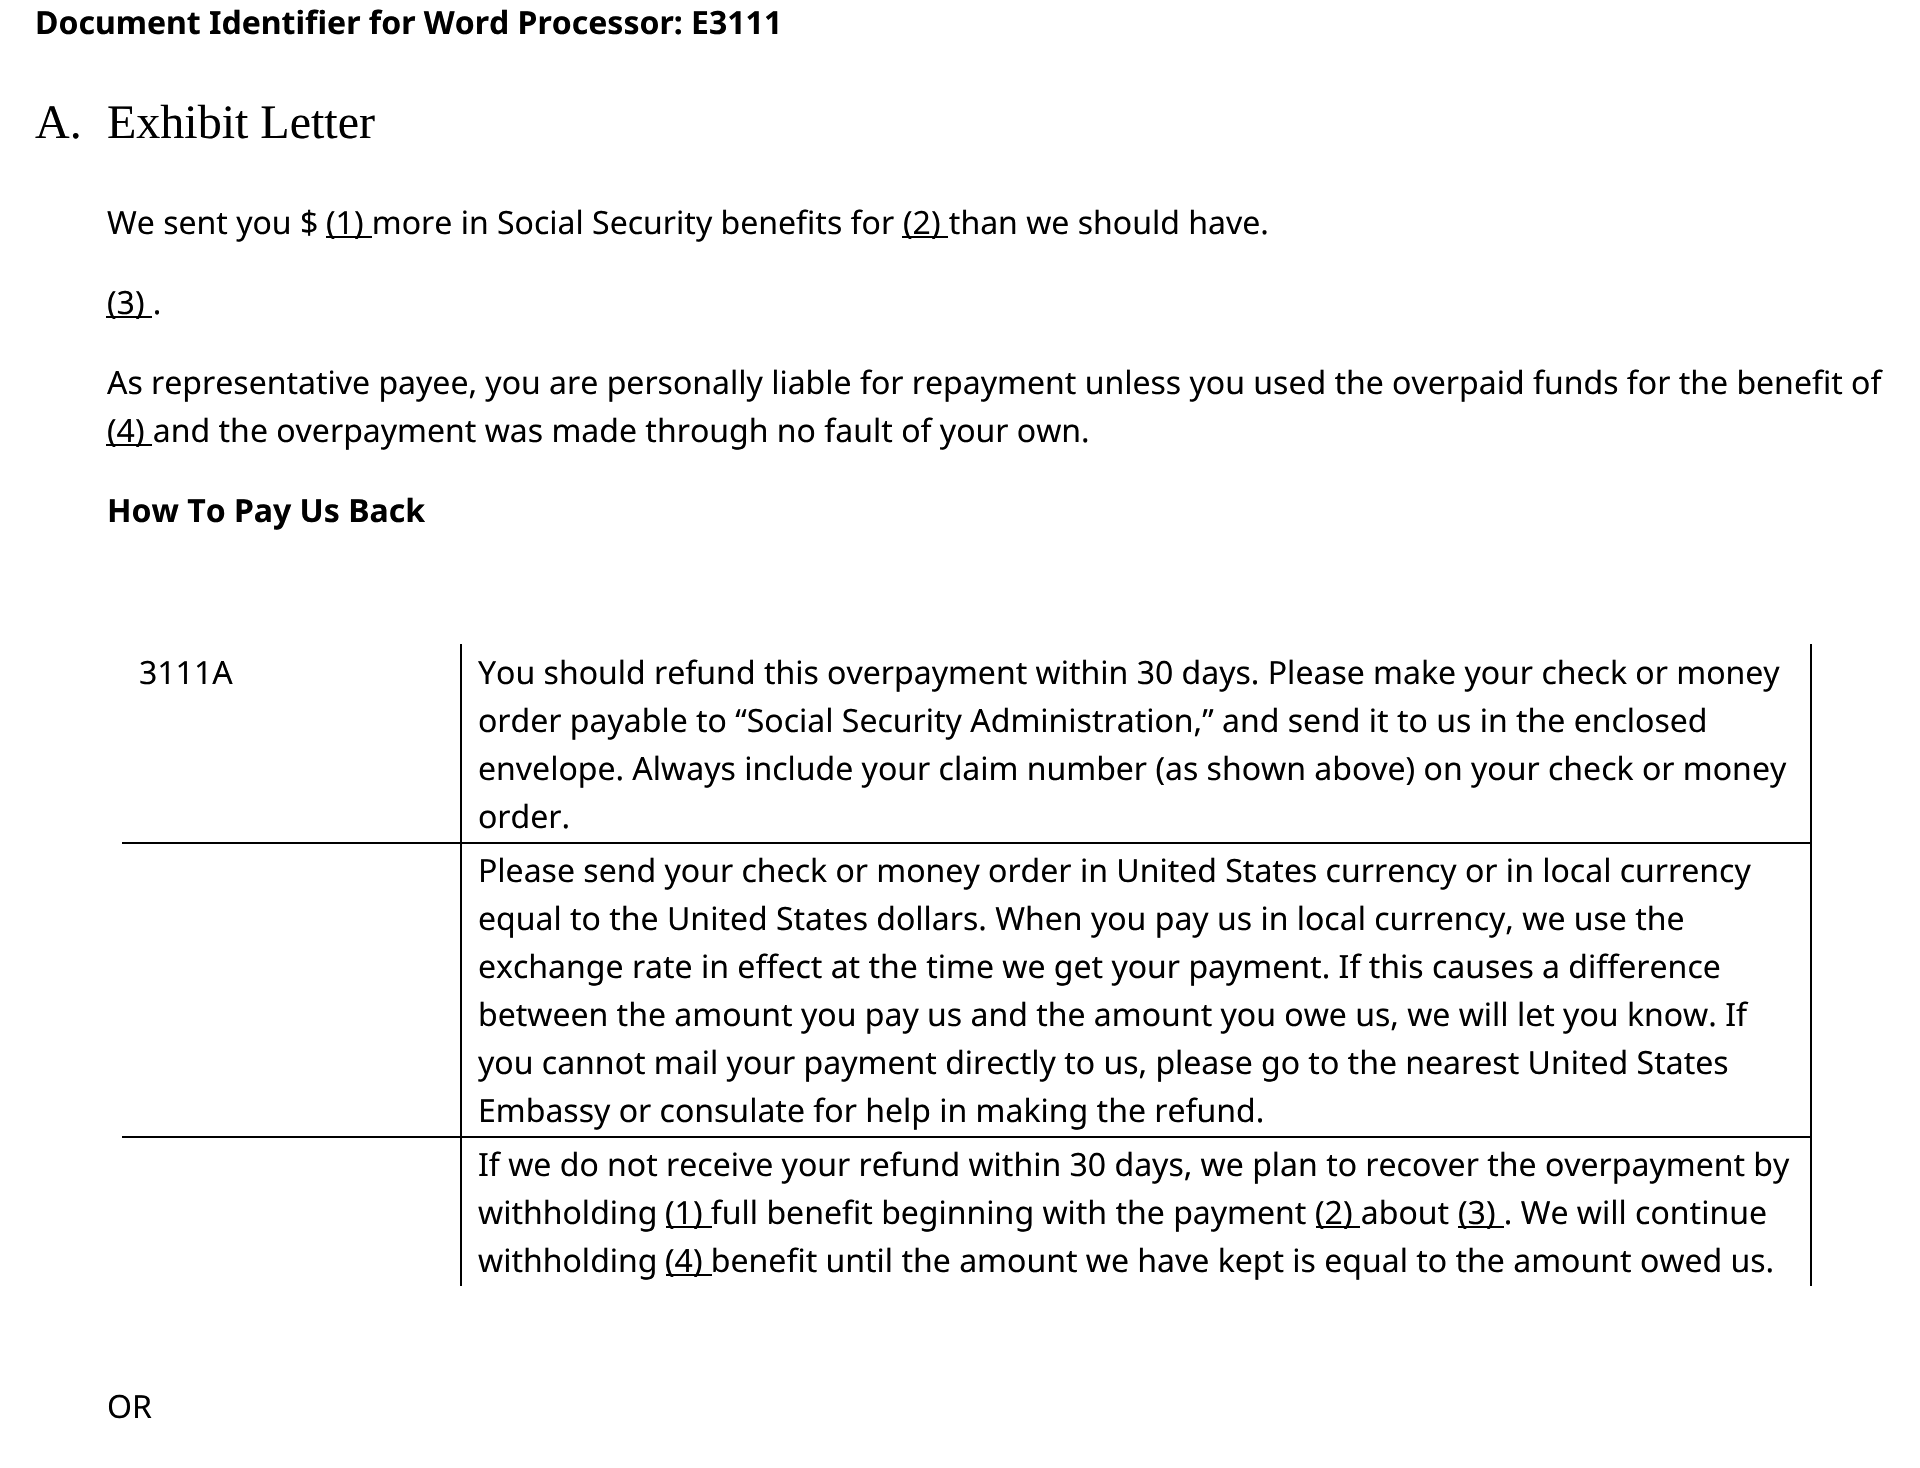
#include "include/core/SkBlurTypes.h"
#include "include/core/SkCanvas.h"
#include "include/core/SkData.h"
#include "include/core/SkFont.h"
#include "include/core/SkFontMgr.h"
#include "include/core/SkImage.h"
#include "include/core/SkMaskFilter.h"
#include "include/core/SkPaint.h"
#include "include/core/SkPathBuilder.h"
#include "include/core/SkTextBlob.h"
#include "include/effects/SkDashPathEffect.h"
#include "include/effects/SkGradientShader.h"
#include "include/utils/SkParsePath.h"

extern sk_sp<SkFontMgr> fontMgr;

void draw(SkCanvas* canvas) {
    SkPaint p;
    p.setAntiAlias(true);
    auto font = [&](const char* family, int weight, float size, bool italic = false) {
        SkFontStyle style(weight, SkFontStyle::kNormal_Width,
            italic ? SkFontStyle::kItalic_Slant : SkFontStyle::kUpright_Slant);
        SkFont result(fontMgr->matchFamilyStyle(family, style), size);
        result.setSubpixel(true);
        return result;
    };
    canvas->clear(0xFFFFFFFF);
    auto font1 = font("Noto Sans", 700, 32);
    p.setColor(0xFF000000);
    canvas->drawString("Document Identifier for Word Processor: E3111", 35, 34, font1, p);
    auto font2 = font("Liberation Serif", 400, 48);
    canvas->drawString("A.", 35, 138, font2, p);
    canvas->drawString("Exhibit Letter", 107, 138, font2, p);
    auto font3 = font("Noto Sans", 400, 32);
    canvas->drawString("We sent you $", 107, 234, font3, p);
    canvas->drawRect(SkRect::MakeLTRB(326, 236, 372, 238), p);
    canvas->drawString("(1) more in Social Security benefits for", 326, 234, font3, p);
    canvas->drawRect(SkRect::MakeLTRB(902, 236, 948, 238), p);
    canvas->drawString("(2) than we should have.", 903, 234, font3, p);
    canvas->drawRect(SkRect::MakeLTRB(106, 316, 152, 318), p);
    canvas->drawString("(3) .", 107, 314, font3, p);
    canvas->drawString("As representative payee, you are personally liable for repayment unless you used the overpaid funds for the benefit of", 107, 394, font3, p);
    canvas->drawRect(SkRect::MakeLTRB(106, 444, 152, 446), p);
    canvas->drawString("(4) and the overpayment was made through no fault of your own.", 107, 442, font3, p);
    canvas->drawString("How To Pay Us Back", 107, 522, font1, p);
    {
        const struct { float l, t, r, b; SkColor color; } items[] = {
            {460, 1136, 462, 1286, 0xFF000000},
            {1810, 644, 1812, 1286, 0xFF000000},
            {460, 1136, 1812, 1138, 0xFF000000},
            {460, 842, 462, 1138, 0xFF000000},
            {460, 842, 1812, 844, 0xFF000000},
            {460, 644, 462, 844, 0xFF000000},
            {122, 842, 462, 844, 0xFF000000},
        };
        for (auto [l, t, r, b, color] : items) {
            p.setColor(color);
            canvas->drawRect(SkRect::MakeLTRB(l, t, r, b), p);
        }
    }
    {
        const struct { const char* s; float x, y; } items[] = {
            {"3111A", 139, 684},
            {"You should refund this overpayment within 30 days. Please make your check or money", 478, 684},
            {"order payable to “Social Security Administration,” and send it to us in the enclosed", 478, 732},
            {"envelope. Always include your claim number (as shown above) on your check or money", 478, 780},
            {"order.", 478, 828},
        };
        for (auto [s, x, y] : items) {
            canvas->drawString(s, x, y, font3, p);
        }
    }
    canvas->drawRect(SkRect::MakeLTRB(122, 1136, 462, 1138), p);
    {
        const struct { const char* s; float x, y; } items[] = {
            {"Please send your check or money order in United States currency or in local currency", 478, 882},
            {"equal to the United States dollars. When you pay us in local currency, we use the", 478, 930},
            {"exchange rate in effect at the time we get your payment. If this causes a difference", 478, 978},
            {"between the amount you pay us and the amount you owe us, we will let you know. If", 478, 1026},
            {"you cannot mail your payment directly to us, please go to the nearest United States", 478, 1074},
            {"Embassy or consulate for help in making the refund.", 478, 1122},
            {"If we do not receive your refund within 30 days, we plan to recover the overpayment by", 478, 1176},
            {"withholding", 478, 1224},
        };
        for (auto [s, x, y] : items) {
            canvas->drawString(s, x, y, font3, p);
        }
    }
    canvas->drawRect(SkRect::MakeLTRB(666, 1226, 712, 1228), p);
    canvas->drawString("(1) full benefit beginning with the payment", 665, 1224, font3, p);
    canvas->drawRect(SkRect::MakeLTRB(1316, 1226, 1360, 1228), p);
    canvas->drawString("(2) about", 1315, 1224, font3, p);
    canvas->drawRect(SkRect::MakeLTRB(1458, 1226, 1504, 1228), p);
    canvas->drawString("(3) . We will continue", 1458, 1224, font3, p);
    canvas->drawString("withholding", 478, 1272, font3, p);
    canvas->drawRect(SkRect::MakeLTRB(666, 1274, 712, 1276), p);
    canvas->drawString("(4) benefit until the amount we have kept is equal to the amount owed us.", 665, 1272, font3, p);
    canvas->drawString("OR", 107, 1418, font3, p);
}
